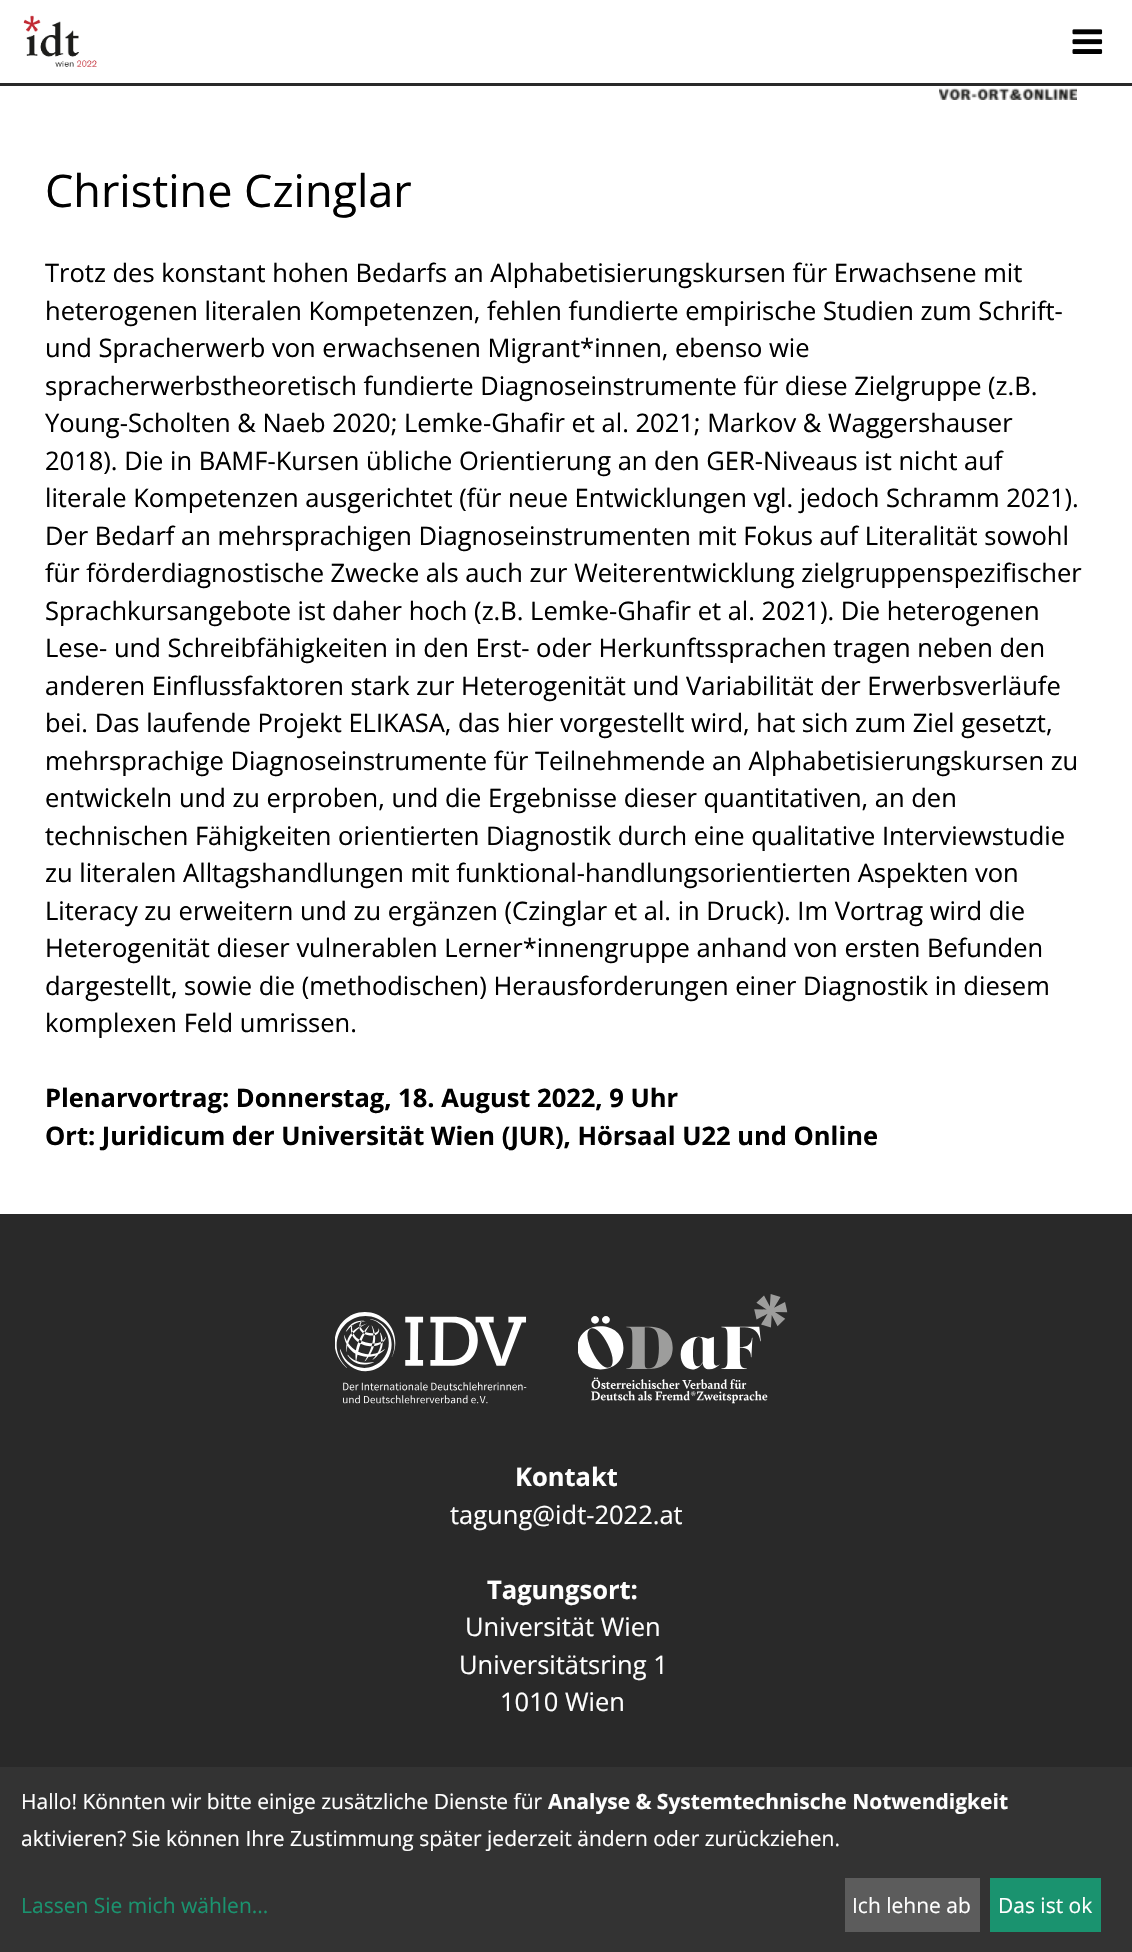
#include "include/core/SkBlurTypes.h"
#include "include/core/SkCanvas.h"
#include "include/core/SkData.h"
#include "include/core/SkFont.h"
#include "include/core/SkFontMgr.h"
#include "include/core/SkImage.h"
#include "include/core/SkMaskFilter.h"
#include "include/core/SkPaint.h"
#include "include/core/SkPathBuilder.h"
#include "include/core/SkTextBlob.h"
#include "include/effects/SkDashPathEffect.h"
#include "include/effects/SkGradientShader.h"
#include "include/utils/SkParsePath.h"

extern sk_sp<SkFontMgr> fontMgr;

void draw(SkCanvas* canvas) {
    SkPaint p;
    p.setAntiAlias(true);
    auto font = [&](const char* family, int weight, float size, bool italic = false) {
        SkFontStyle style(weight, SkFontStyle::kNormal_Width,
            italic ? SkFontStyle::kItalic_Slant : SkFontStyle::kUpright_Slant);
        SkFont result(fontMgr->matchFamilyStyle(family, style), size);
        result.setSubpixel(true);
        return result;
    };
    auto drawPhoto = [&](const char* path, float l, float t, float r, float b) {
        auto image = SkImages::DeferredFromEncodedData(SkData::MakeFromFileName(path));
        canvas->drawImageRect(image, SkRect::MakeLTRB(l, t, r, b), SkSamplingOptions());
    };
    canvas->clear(0xFFFFFFFF);
    p.setColor(0xFF292929);
    canvas->drawRect(SkRect::MakeLTRB(0, 83, 1132, 86), p);
    drawPhoto("media/1.png", 23, 15, 97, 67);
    drawPhoto("media/2.png", 1072, 29, 1103, 54);
    drawPhoto("media/3.png", 939, 88, 1077, 100);
    auto font1 = font("Open Sans", 400, 45);
    p.setColor(0xFF000000);
    canvas->drawString("Christine Czinglar", 45, 207, font1, p);
    auto font2 = font("Open Sans", 400, 25.5f);
    {
        const struct { const char* s; float x, y; } items[] = {
            {"Trotz des konstant hohen Bedarfs an Alphabetisierungskursen für Erwachsene mit", 45, 282},
            {"heterogenen literalen Kompetenzen, fehlen fundierte empirische Studien zum Schrift-", 45, 320},
            {"und Spracherwerb von erwachsenen Migrant*innen, ebenso wie", 45, 357},
            {"spracherwerbstheoretisch fundierte Diagnoseinstrumente für diese Zielgruppe (z.B.", 45, 395},
            {"Young-Scholten & Naeb 2020; Lemke-Ghafir et al. 2021; Markov & Waggershauser", 45, 432},
            {"2018). Die in BAMF-Kursen übliche Orientierung an den GER-Niveaus ist nicht auf", 45, 470},
            {"literale Kompetenzen ausgerichtet (für neue Entwicklungen vgl. jedoch Schramm 2021).", 45, 507},
            {"Der Bedarf an mehrsprachigen Diagnoseinstrumenten mit Fokus auf Literalität sowohl", 45, 545},
            {"für förderdiagnostische Zwecke als auch zur Weiterentwicklung zielgruppenspezifischer", 45, 582},
            {"Sprachkursangebote ist daher hoch (z.B. Lemke-Ghafir et al. 2021). Die heterogenen", 45, 620},
            {"Lese- und Schreibfähigkeiten in den Erst- oder Herkunftssprachen tragen neben den", 45, 657},
            {"anderen Einflussfaktoren stark zur Heterogenität und Variabilität der Erwerbsverläufe", 45, 695},
            {"bei. Das laufende Projekt ELIKASA, das hier vorgestellt wird, hat sich zum Ziel gesetzt,", 45, 732},
            {"mehrsprachige Diagnoseinstrumente für Teilnehmende an Alphabetisierungskursen zu", 45, 770},
            {"entwickeln und zu erproben, und die Ergebnisse dieser quantitativen, an den", 45, 807},
            {"technischen Fähigkeiten orientierten Diagnostik durch eine qualitative Interviewstudie", 45, 845},
            {"zu literalen Alltagshandlungen mit funktional-handlungsorientierten Aspekten von", 45, 882},
            {"Literacy zu erweitern und zu ergänzen (Czinglar et al. in Druck). Im Vortrag wird die", 45, 920},
            {"Heterogenität dieser vulnerablen Lerner*innengruppe anhand von ersten Befunden", 45, 957},
            {"dargestellt, sowie die (methodischen) Herausforderungen einer Diagnostik in diesem", 45, 995},
            {"komplexen Feld umrissen.", 45, 1032},
        };
        for (auto [s, x, y] : items) {
            canvas->drawString(s, x, y, font2, p);
        }
    }
    auto font3 = font("Open Sans", 700, 25.5f);
    canvas->drawString("Plenarvortrag: Donnerstag, 18. August 2022, 9 Uhr", 45, 1107, font3, p);
    canvas->drawString("Ort: Juridicum der Universität Wien (JUR), Hörsaal U22 und Online", 45, 1145, font3, p);
    p.setColor(0xFF292929);
    canvas->drawRect(SkRect::MakeLTRB(0, 1214, 1132, 1767), p);
    drawPhoto("media/4.png", 335, 1312, 527, 1404);
    drawPhoto("media/5.png", 578, 1294, 788, 1404);
    p.setColor(0xFFFFFFFF);
    canvas->drawString("Kontakt", 515, 1486, font3, p);
    canvas->drawString("tagung@idt-2022.at", 450, 1524, font2, p);
    canvas->drawString("Tagungsort:", 487, 1599, font3, p);
    {
        const struct { const char* s; float x, y; } items[] = {
            {"Universität Wien", 465, 1636},
            {"Universitätsring 1", 459, 1674},
            {"1010 Wien", 500, 1711},
        };
        for (auto [s, x, y] : items) {
            canvas->drawString(s, x, y, font2, p);
        }
    }
    p.setColor(0xFF333333);
    canvas->drawRect(SkRect::MakeLTRB(0, 1767, 1132, 1952), p);
    auto font4 = font("Open Sans", 400, 21);
    p.setColor(0xFFFFFFFF);
    canvas->drawString("Hallo! Könnten wir bitte einige zusätzliche Dienste für", 21, 1809, font4, p);
    auto font5 = font("Open Sans", 700, 21);
    canvas->drawString("Analyse & Systemtechnische Notwendigkeit", 548, 1809, font5, p);
    canvas->drawString("aktivieren? Sie können Ihre Zustimmung später jederzeit ändern oder zurückziehen.", 21, 1846, font4, p);
    p.setColor(0xFF1A936F);
    canvas->drawString("Lassen Sie mich wählen...", 21, 1913, font4, p);
    p.setColor(0xFF5C5C5C);
    canvas->drawRect(SkRect::MakeLTRB(845, 1878, 980, 1932), p);
    p.setColor(0xFFFFFFFF);
    canvas->drawString("Ich lehne ab", 852, 1913, font4, p);
    p.setColor(0xFF1A936F);
    canvas->drawRect(SkRect::MakeLTRB(990, 1878, 1101, 1932), p);
    p.setColor(0xFFFFFFFF);
    canvas->drawString("Das ist ok", 998, 1913, font4, p);
}
